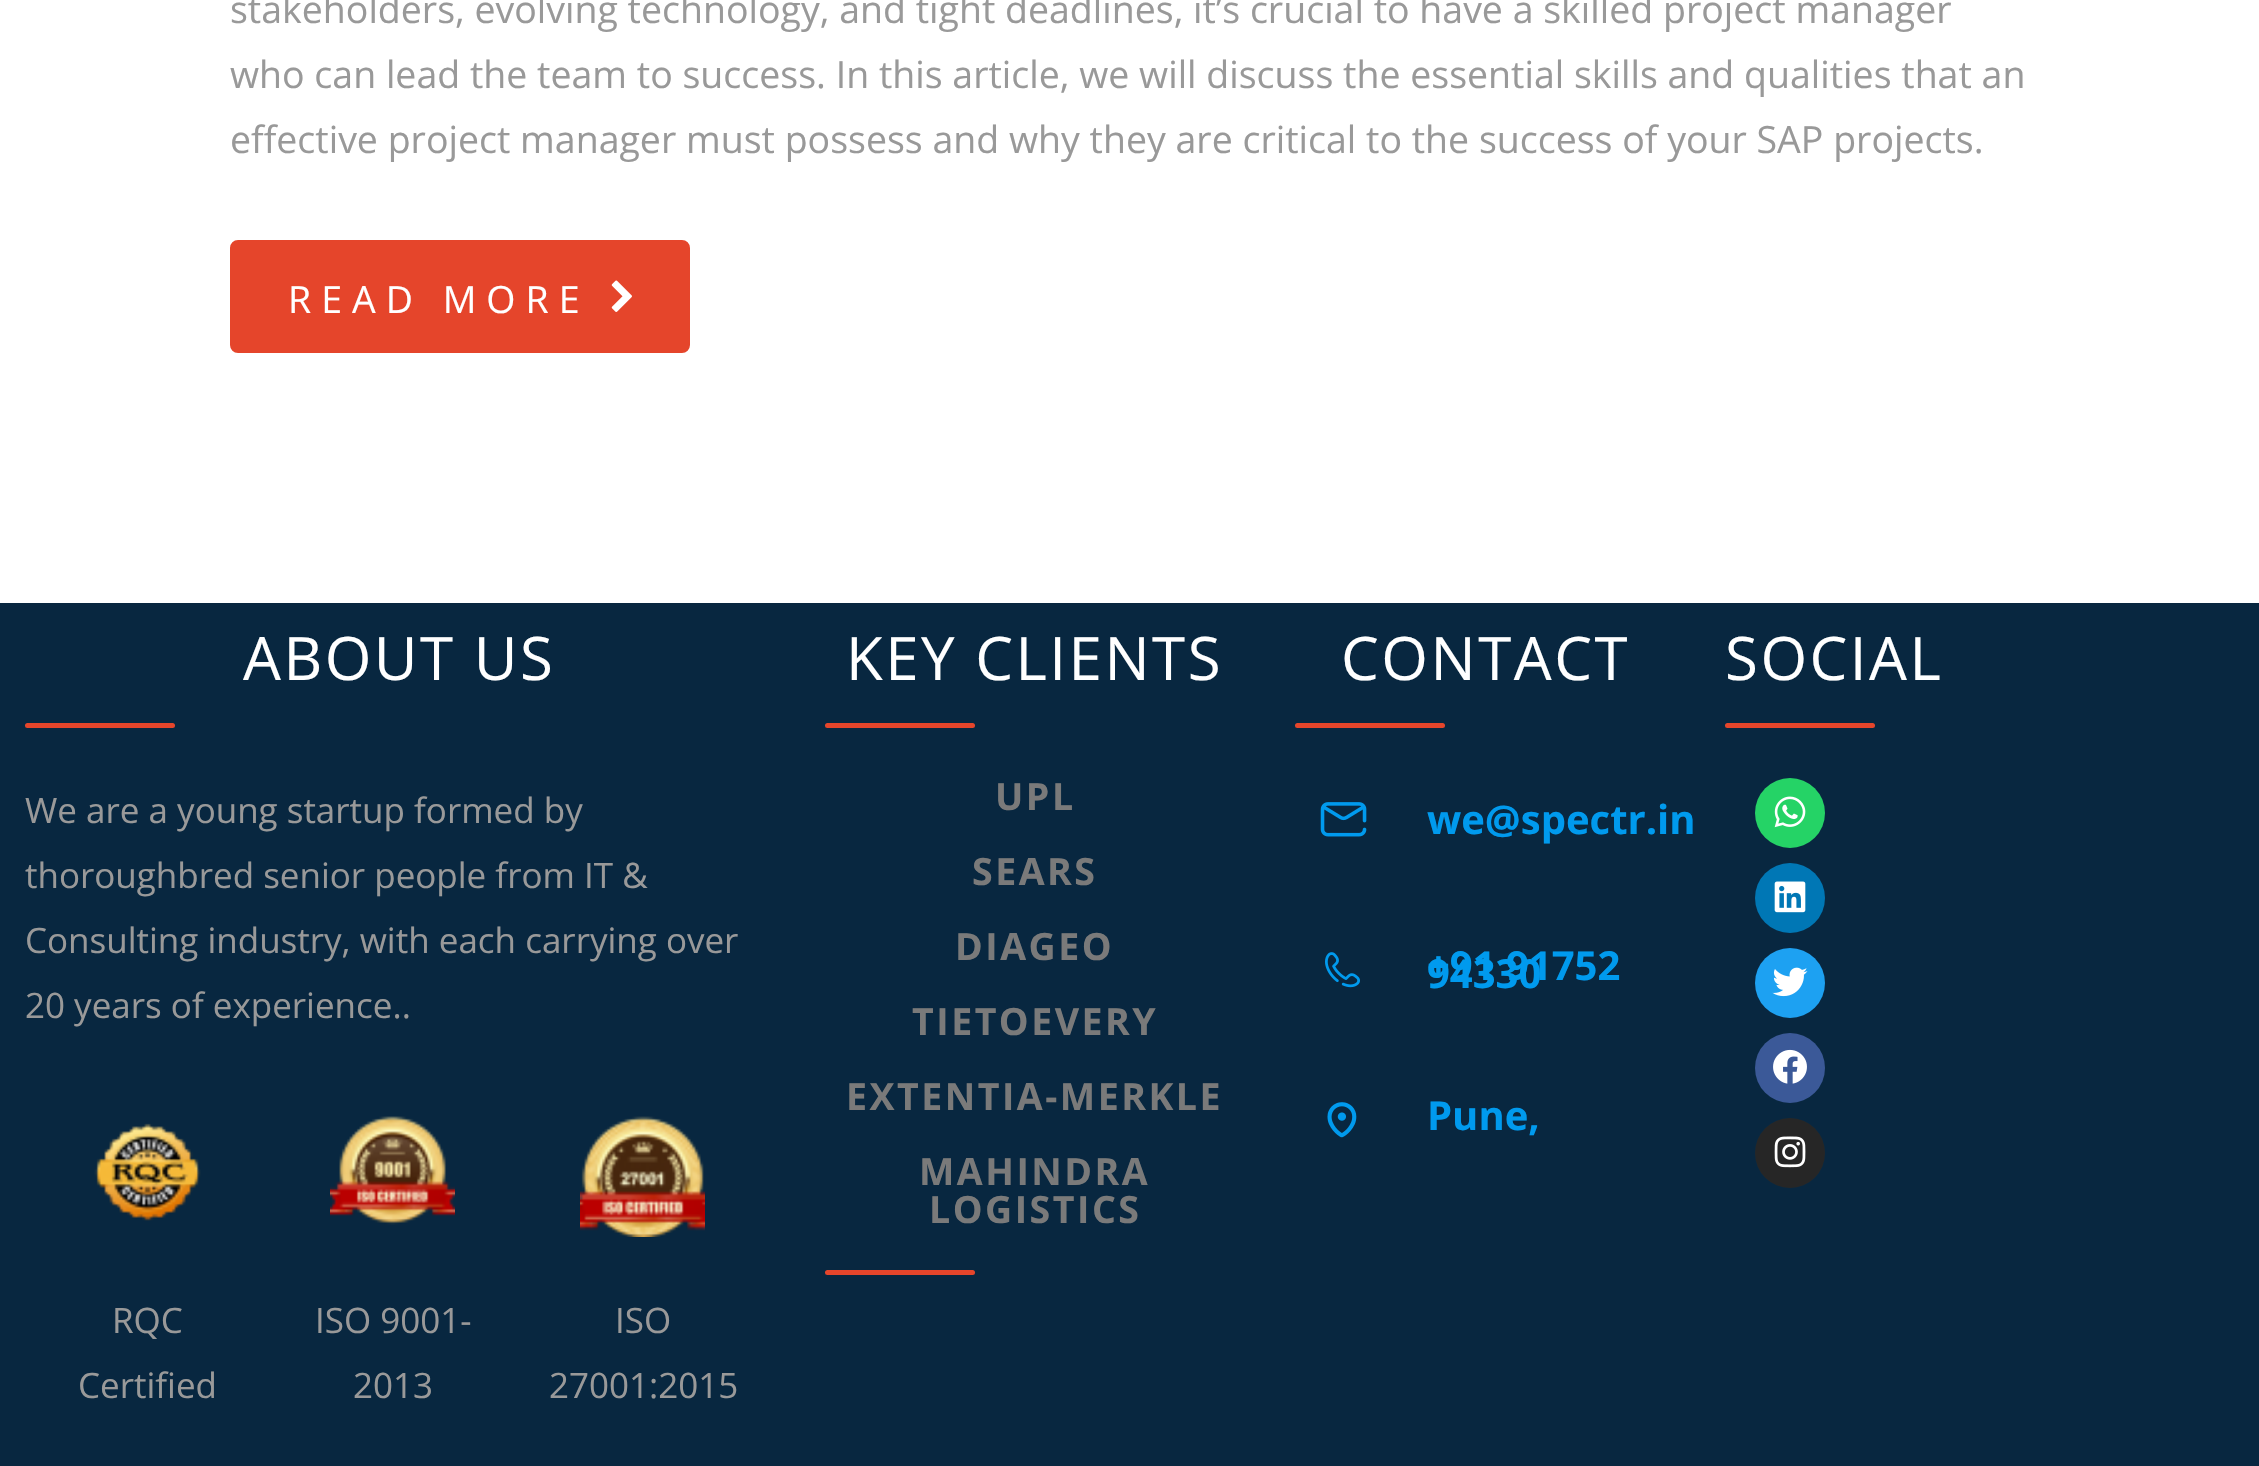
#include "include/core/SkBlurTypes.h"
#include "include/core/SkCanvas.h"
#include "include/core/SkData.h"
#include "include/core/SkFont.h"
#include "include/core/SkFontMgr.h"
#include "include/core/SkImage.h"
#include "include/core/SkMaskFilter.h"
#include "include/core/SkPaint.h"
#include "include/core/SkPathBuilder.h"
#include "include/core/SkTextBlob.h"
#include "include/effects/SkDashPathEffect.h"
#include "include/effects/SkGradientShader.h"
#include "include/utils/SkParsePath.h"

extern sk_sp<SkFontMgr> fontMgr;

void draw(SkCanvas* canvas) {
    SkPaint p;
    p.setAntiAlias(true);
    auto font = [&](const char* family, int weight, float size, bool italic = false) {
        SkFontStyle style(weight, SkFontStyle::kNormal_Width,
            italic ? SkFontStyle::kItalic_Slant : SkFontStyle::kUpright_Slant);
        SkFont result(fontMgr->matchFamilyStyle(family, style), size);
        result.setSubpixel(true);
        return result;
    };
    auto drawTracked = [&](const char* s, float x, float y, const SkFont& font, const SkPaint& ink, float letter, float word) {
        std::vector<SkGlyphID> glyphs(font.countText(s, strlen(s), SkTextEncoding::kUTF8));
        std::vector<float> xs(glyphs.size());
        font.textToGlyphs(s, strlen(s), SkTextEncoding::kUTF8, glyphs);
        font.getXPos(glyphs, xs, x);
        float extra = 0;
        for (size_t i = 0; i < glyphs.size(); i++) {
            xs[i] += extra;
            extra += letter + word * (glyphs[i] == font.unicharToGlyph(' '));
        }
        canvas->drawTextBlob(SkTextBlob::MakeFromPosHGlyphs(glyphs, xs, y, font), 0, 0, ink);
    };
    auto drawPhoto = [&](const char* path, float l, float t, float r, float b) {
        auto image = SkImages::DeferredFromEncodedData(SkData::MakeFromFileName(path));
        canvas->drawImageRect(image, SkRect::MakeLTRB(l, t, r, b), SkSamplingOptions());
    };
    canvas->clear(0xFFFFFFFF);
    auto font1 = font("Open Sans", 400, 37.5f);
    p.setColor(0xFF999999);
    {
        const struct { const char* s; float x, y; } items[] = {
            {"stakeholders, evolving technology, and tight deadlines, it’s crucial to have a skilled project manager", 230, 23},
            {"who can lead the team to success. In this article, we will discuss the essential skills and qualities that an", 230, 88},
            {"effective project manager must possess and why they are critical to the success of your SAP projects.", 230, 153},
        };
        for (auto [s, x, y] : items) {
            canvas->drawString(s, x, y, font1, p);
        }
    }
    p.setColor(0xFFE5452B);
    canvas->drawRoundRect(SkRect::MakeLTRB(234, 244, 686, 349), 4, 4, p);
    p.setStyle(SkPaint::kStroke_Style);
    p.setStrokeWidth(8);
    canvas->drawRoundRect(SkRect::MakeLTRB(234, 244, 686, 349), 4, 4, p);
    p.setStyle(SkPaint::kFill_Style);
    p.setColor(0xFFFFFFFF);
    drawTracked("READ MORE", 288, 313, font1, p, 10, 0);
    drawPhoto("media/1.png", 611, 280, 632, 312);
    p.setColor(0xFF082740);
    canvas->drawRect(SkRect::MakeLTRB(0, 603, 2259, 1466), p);
    auto font2 = font("Open Sans", 400, 60);
    p.setColor(0xFFFFFFFF);
    drawTracked("ABOUT US", 243, 680, font2, p, 2.5f, 0);
    p.setColor(0xFFE5452B);
    canvas->drawRoundRect(SkRect::MakeLTRB(25, 723, 175, 728), 2.5f, 2.5f, p);
    auto font3 = font("Open Sans", 400, 35);
    p.setColor(0xFF999999);
    {
        const struct { const char* s; float x, y; } items[] = {
            {"We are a young startup formed by", 25, 823},
            {"thoroughbred senior people from IT &", 25, 888},
            {"Consulting industry, with each carrying over", 25, 953},
            {"20 years of experience..", 25, 1018},
        };
        for (auto [s, x, y] : items) {
            canvas->drawString(s, x, y, font3, p);
        }
    }
    drawPhoto("media/2.png", 94, 1123, 201, 1221);
    canvas->drawString("RQC", 112, 1333, font3, p);
    canvas->drawString("Certified", 78, 1398, font3, p);
    drawPhoto("media/3.png", 330, 1116, 455, 1225);
    canvas->drawString("ISO 9001-", 315, 1333, font3, p);
    canvas->drawString("2013", 353, 1398, font3, p);
    drawPhoto("media/4.png", 580, 1116, 705, 1237);
    canvas->drawString("ISO", 615, 1333, font3, p);
    canvas->drawString("27001:2015", 549, 1398, font3, p);
    p.setColor(0xFFFFFFFF);
    drawTracked("KEY CLIENTS", 846, 680, font2, p, 2.5f, 0);
    p.setColor(0xFFE5452B);
    canvas->drawRoundRect(SkRect::MakeLTRB(825, 723, 975, 728), 2.5f, 2.5f, p);
    auto font4 = font("Open Sans", 700, 37.5f);
    p.setColor(0xFF7A7A7A);
    {
        const struct { const char* s; float x, y; } items[] = {
            {"UPL", 995, 810},
            {"SEARS", 972, 885},
            {"DIAGEO", 955, 960},
            {"TIETOEVERY", 912, 1035},
            {"EXTENTIA-MERKLE", 846, 1110},
            {"MAHINDRA", 919, 1185},
            {"LOGISTICS", 929, 1223},
        };
        for (auto [s, x, y] : items) {
            drawTracked(s, x, y, font4, p, 2.5f, 0);
        }
    }
    p.setColor(0xFFE5452B);
    canvas->drawRoundRect(SkRect::MakeLTRB(825, 1270, 975, 1275), 2.5f, 2.5f, p);
    p.setColor(0xFFFFFFFF);
    drawTracked("CONTACT", 1341, 680, font2, p, 2.5f, 0);
    p.setColor(0xFFE5452B);
    canvas->drawRoundRect(SkRect::MakeLTRB(1295, 723, 1445, 728), 2.5f, 2.5f, p);
    drawPhoto("media/5.png", 1320, 802, 1367, 837);
    auto font5 = font("Open Sans", 700, 40);
    p.setColor(0xFF009AEE);
    canvas->drawString("we@spectr.in", 1427, 834, font5, p);
    drawPhoto("media/6.png", 1325, 952, 1360, 988);
    canvas->drawString("+91 91752", 1427, 980, font5, p);
    canvas->drawString("94330", 1427, 988, font5, p);
    drawPhoto("media/7.png", 1327, 1102, 1357, 1138);
    canvas->drawString("Pune,", 1427, 1130, font5, p);
    p.setColor(0xFFFFFFFF);
    drawTracked("SOCIAL", 1725, 680, font2, p, 2.5f, 0);
    p.setColor(0xFFE5452B);
    canvas->drawRoundRect(SkRect::MakeLTRB(1725, 723, 1875, 728), 2.5f, 2.5f, p);
    p.setColor(0xFF25D366);
    canvas->drawCircle(1790, 813, 35, p);
    drawPhoto("media/8.png", 1774, 796, 1806, 828);
    p.setColor(0xFF0077B5);
    canvas->drawCircle(1790, 898, 35, p);
    drawPhoto("media/9.png", 1774, 881, 1806, 913);
    p.setColor(0xFF1DA1F2);
    canvas->drawCircle(1790, 983, 35, p);
    drawPhoto("media/10.png", 1772, 967, 1808, 997);
    p.setColor(0xFF3B5998);
    canvas->drawCircle(1790, 1068, 35, p);
    drawPhoto("media/11.png", 1773, 1049, 1807, 1084);
    p.setColor(0xFF262626);
    canvas->drawCircle(1790, 1153, 35, p);
    drawPhoto("media/12.png", 1774, 1136, 1806, 1168);
}
